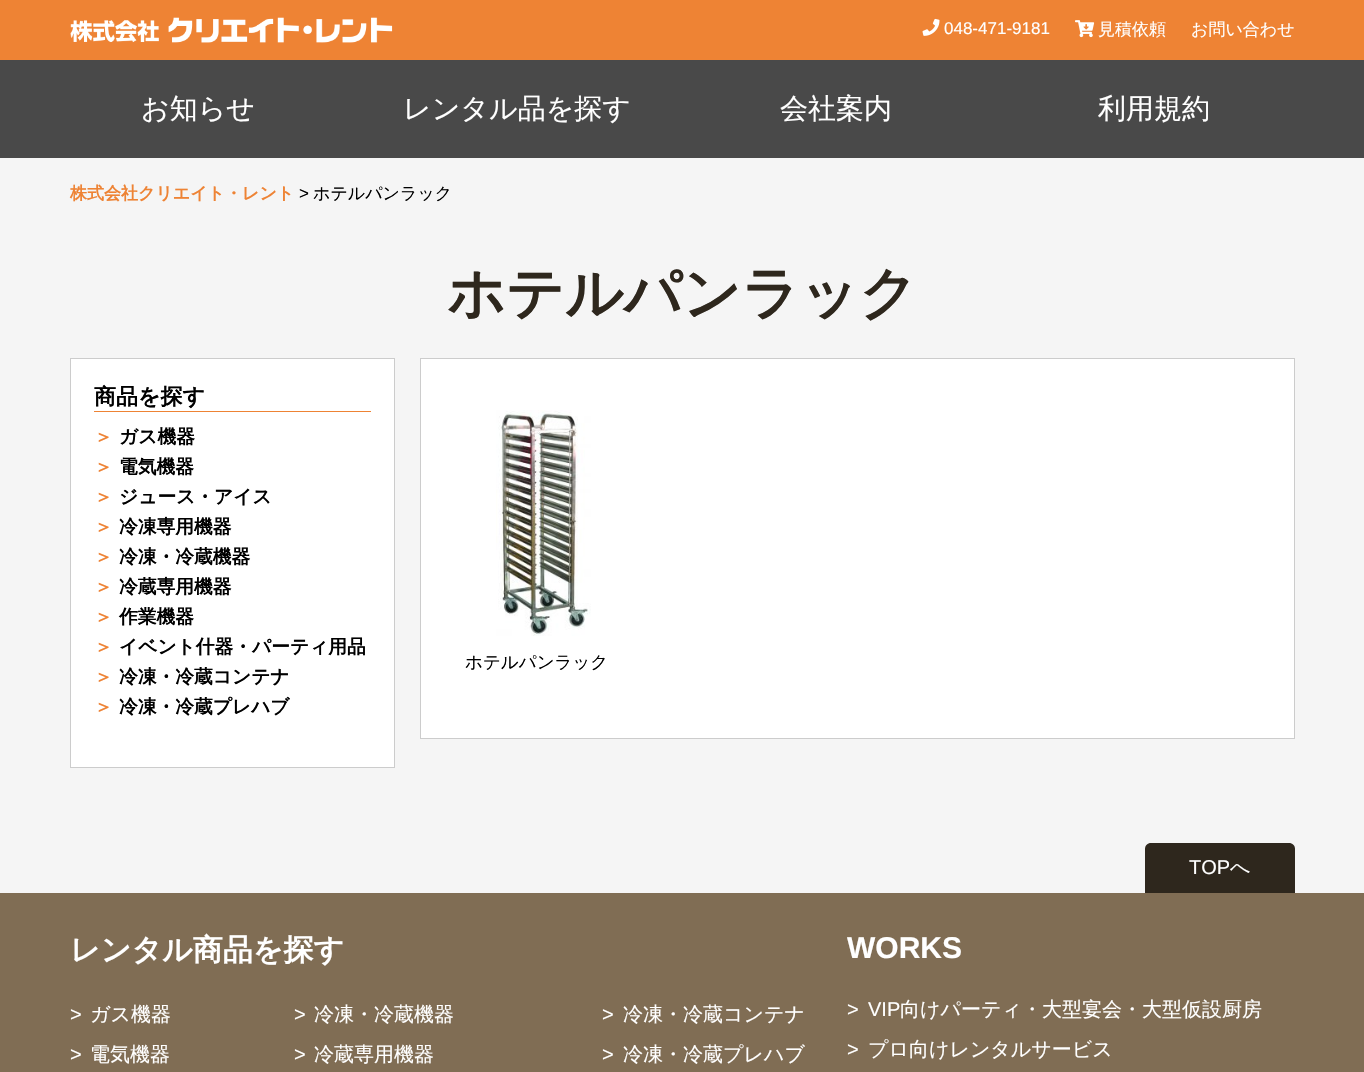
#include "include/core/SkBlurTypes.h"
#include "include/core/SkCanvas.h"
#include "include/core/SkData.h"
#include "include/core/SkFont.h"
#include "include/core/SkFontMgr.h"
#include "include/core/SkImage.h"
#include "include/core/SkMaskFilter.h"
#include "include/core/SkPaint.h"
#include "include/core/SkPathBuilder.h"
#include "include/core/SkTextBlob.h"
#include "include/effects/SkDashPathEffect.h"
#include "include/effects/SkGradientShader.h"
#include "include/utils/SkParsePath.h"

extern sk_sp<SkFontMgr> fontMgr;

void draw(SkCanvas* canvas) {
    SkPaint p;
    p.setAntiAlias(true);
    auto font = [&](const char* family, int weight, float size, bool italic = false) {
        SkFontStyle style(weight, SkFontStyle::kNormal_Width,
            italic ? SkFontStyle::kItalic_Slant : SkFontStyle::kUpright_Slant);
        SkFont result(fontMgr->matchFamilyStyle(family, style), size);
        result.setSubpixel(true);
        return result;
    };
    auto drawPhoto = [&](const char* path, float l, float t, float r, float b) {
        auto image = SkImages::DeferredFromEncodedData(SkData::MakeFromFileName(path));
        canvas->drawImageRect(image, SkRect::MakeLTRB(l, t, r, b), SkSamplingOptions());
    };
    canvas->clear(0xFFF5F5F5);
    p.setColor(0xFFEE8334);
    canvas->drawRect(SkRect::MakeLTRB(0, 0, 1364, 60), p);
    drawPhoto("media/1.png", 70, 17, 393, 43);
    drawPhoto("media/2.png", 922, 18, 940, 36);
    auto font1 = font("Liberation Sans", 400, 17);
    p.setColor(0xFFFFFFFF);
    canvas->drawString("048-471-9181", 944, 34, font1, p);
    drawPhoto("media/3.png", 1075, 20, 1095, 38);
    auto font2 = font("WenQuanYi Zen Hei", 500, 17);
    canvas->drawString("見積依頼", 1098, 35, font2, p);
    canvas->drawString("お問い合わせ", 1191, 35, font2, p);
    p.setColor(0xFF494949);
    canvas->drawRect(SkRect::MakeLTRB(0, 60, 1364, 158), p);
    auto font3 = font("WenQuanYi Zen Hei", 500, 28);
    p.setColor(0xFFFFFFFF);
    {
        const struct { const char* s; float x, y; } items[] = {
            {"お知らせ", 141, 118},
            {"レンタル品を探す", 403, 118},
            {"会社案内", 780, 118},
            {"利用規約", 1098, 118},
        };
        for (auto [s, x, y] : items) {
            canvas->drawString(s, x, y, font3, p);
        }
    }
    auto font4 = font("WenQuanYi Zen Hei", 700, 17);
    p.setColor(0xFFEE8334);
    canvas->drawString("株式会社クリエイト・レント", 70, 199, font4, p);
    p.setColor(0xFF000000);
    canvas->drawString(">", 299, 199, font1, p);
    canvas->drawString("ホテルパンラック", 313, 199, font2, p);
    auto font5 = font("WenQuanYi Zen Hei", 700, 57.5f);
    p.setColor(0xFF2E271D);
    canvas->drawString("ホテルパンラック", 447, 313, font5, p);
    p.setColor(0xFFFFFFFF);
    canvas->drawRect(SkRect::MakeLTRB(70.5f, 358.5f, 394.5f, 767.5f), p);
    p.setStyle(SkPaint::kStroke_Style);
    p.setStrokeWidth(1);
    p.setColor(0xFFCCCCCC);
    canvas->drawRect(SkRect::MakeLTRB(70.5f, 358.5f, 394.5f, 767.5f), p);
    p.setStyle(SkPaint::kFill_Style);
    p.setColor(0xFFEE8334);
    canvas->drawRect(SkRect::MakeLTRB(94, 411, 371, 412), p);
    auto font6 = font("WenQuanYi Zen Hei", 700, 22);
    p.setColor(0xFF000000);
    canvas->drawString("商品を探す", 94, 404, font6, p);
    auto font7 = font("WenQuanYi Zen Hei", 700, 18.75f);
    p.setColor(0xFFEE8334);
    canvas->drawString("＞", 94, 443, font7, p);
    p.setColor(0xFF000000);
    canvas->drawString("ガス機器", 119, 443, font7, p);
    p.setColor(0xFFEE8334);
    canvas->drawString("＞", 94, 473, font7, p);
    p.setColor(0xFF000000);
    canvas->drawString("電気機器", 119, 473, font7, p);
    p.setColor(0xFFEE8334);
    canvas->drawString("＞", 94, 503, font7, p);
    p.setColor(0xFF000000);
    canvas->drawString("ジュース・アイス", 119, 503, font7, p);
    p.setColor(0xFFEE8334);
    canvas->drawString("＞", 94, 533, font7, p);
    p.setColor(0xFF000000);
    canvas->drawString("冷凍専用機器", 119, 533, font7, p);
    p.setColor(0xFFEE8334);
    canvas->drawString("＞", 94, 563, font7, p);
    p.setColor(0xFF000000);
    canvas->drawString("冷凍・冷蔵機器", 119, 563, font7, p);
    p.setColor(0xFFEE8334);
    canvas->drawString("＞", 94, 593, font7, p);
    p.setColor(0xFF000000);
    canvas->drawString("冷蔵専用機器", 119, 593, font7, p);
    p.setColor(0xFFEE8334);
    canvas->drawString("＞", 94, 623, font7, p);
    p.setColor(0xFF000000);
    canvas->drawString("作業機器", 119, 623, font7, p);
    p.setColor(0xFFEE8334);
    canvas->drawString("＞", 94, 653, font7, p);
    p.setColor(0xFF000000);
    canvas->drawString("イベント什器・パーティ用品", 119, 653, font7, p);
    p.setColor(0xFFEE8334);
    canvas->drawString("＞", 94, 683, font7, p);
    p.setColor(0xFF000000);
    canvas->drawString("冷凍・冷蔵コンテナ", 119, 683, font7, p);
    p.setColor(0xFFEE8334);
    canvas->drawString("＞", 94, 713, font7, p);
    p.setColor(0xFF000000);
    canvas->drawString("冷凍・冷蔵プレハブ", 119, 713, font7, p);
    p.setColor(0xFFFFFFFF);
    canvas->drawRect(SkRect::MakeLTRB(420.5f, 358.5f, 1294.5f, 738.5f), p);
    p.setStyle(SkPaint::kStroke_Style);
    p.setColor(0xFFCCCCCC);
    canvas->drawRect(SkRect::MakeLTRB(420.5f, 358.5f, 1294.5f, 738.5f), p);
    drawPhoto("media/4.png", 496, 410, 591, 636);
    auto font8 = font("WenQuanYi Zen Hei", 500, 17.5f);
    p.setStyle(SkPaint::kFill_Style);
    p.setColor(0xFF000000);
    canvas->drawString("ホテルパンラック", 465, 668, font8, p);
    p.setColor(0xFF2E271D);
    canvas->drawPath(SkPathBuilder().moveTo(1151, 843).lineTo(1289, 843).cubicTo(1292.5f, 843, 1295, 845.5f, 1295, 849).lineTo(1295, 893).lineTo(1145, 893).lineTo(1145, 849).cubicTo(1145, 845.5f, 1147.5f, 843, 1151, 843).close().detach(), p);
    auto font9 = font("Liberation Sans", 400, 20);
    p.setColor(0xFFFFFFFF);
    canvas->drawString("TOP", 1189, 874, font9, p);
    auto font10 = font("WenQuanYi Zen Hei", 500, 20);
    canvas->drawString("へ", 1230, 874, font10, p);
    p.setColor(0xFF806D54);
    canvas->drawRect(SkRect::MakeLTRB(0, 893, 1364, 1072), p);
    auto font11 = font("WenQuanYi Zen Hei", 700, 30);
    p.setColor(0xFFFFFFFF);
    canvas->drawString("レンタル商品を探す", 70, 960, font11, p);
    canvas->drawString(">", 70, 1021, font9, p);
    canvas->drawString("ガス機器", 90, 1021, font10, p);
    canvas->drawString(">", 70, 1061, font9, p);
    canvas->drawString("電気機器", 90, 1061, font10, p);
    canvas->drawString(">", 294, 1021, font9, p);
    canvas->drawString("冷凍・冷蔵機器", 314, 1021, font10, p);
    canvas->drawString(">", 294, 1061, font9, p);
    canvas->drawString("冷蔵専用機器", 314, 1061, font10, p);
    canvas->drawString(">", 602, 1021, font9, p);
    canvas->drawString("冷凍・冷蔵コンテナ", 623, 1021, font10, p);
    canvas->drawString(">", 602, 1061, font9, p);
    canvas->drawString("冷凍・冷蔵プレハブ", 623, 1061, font10, p);
    auto font12 = font("Liberation Sans", 700, 30);
    canvas->drawString("WORKS", 847, 958, font12, p);
    canvas->drawString(">", 847, 1016, font9, p);
    canvas->drawString("VIP", 868, 1016, font9, p);
    canvas->drawString("向けパーティ・大型宴会・大型仮設厨房", 900, 1016, font10, p);
    canvas->drawString(">", 847, 1056, font9, p);
    canvas->drawString("プロ向けレンタルサービス", 868, 1056, font10, p);
}
